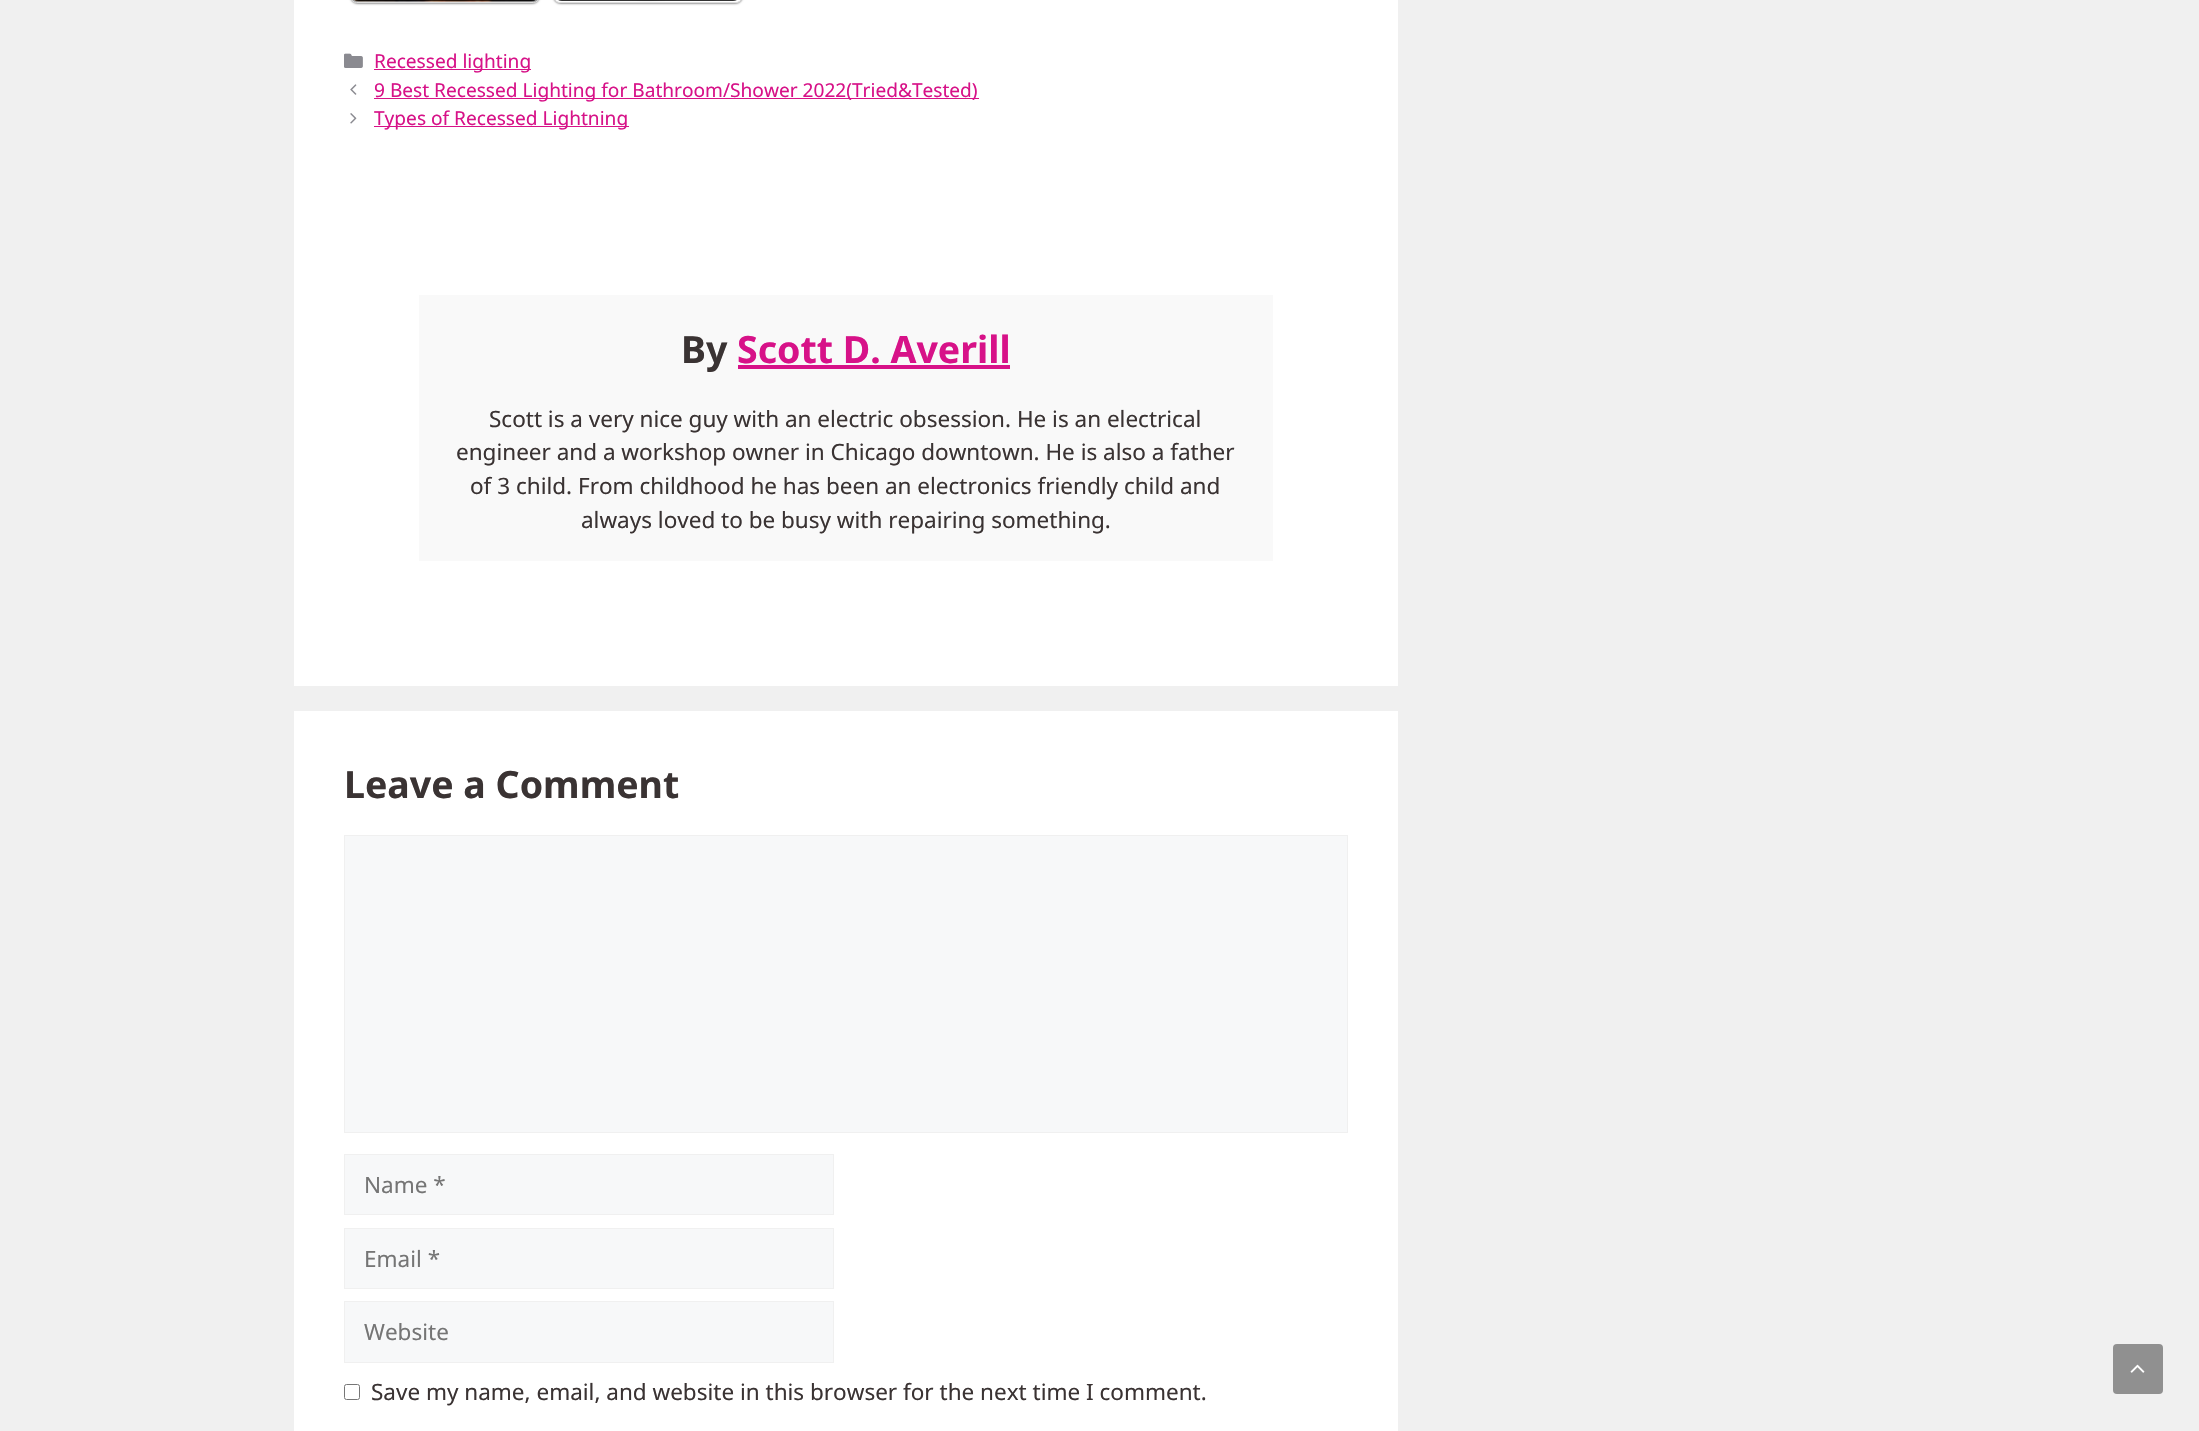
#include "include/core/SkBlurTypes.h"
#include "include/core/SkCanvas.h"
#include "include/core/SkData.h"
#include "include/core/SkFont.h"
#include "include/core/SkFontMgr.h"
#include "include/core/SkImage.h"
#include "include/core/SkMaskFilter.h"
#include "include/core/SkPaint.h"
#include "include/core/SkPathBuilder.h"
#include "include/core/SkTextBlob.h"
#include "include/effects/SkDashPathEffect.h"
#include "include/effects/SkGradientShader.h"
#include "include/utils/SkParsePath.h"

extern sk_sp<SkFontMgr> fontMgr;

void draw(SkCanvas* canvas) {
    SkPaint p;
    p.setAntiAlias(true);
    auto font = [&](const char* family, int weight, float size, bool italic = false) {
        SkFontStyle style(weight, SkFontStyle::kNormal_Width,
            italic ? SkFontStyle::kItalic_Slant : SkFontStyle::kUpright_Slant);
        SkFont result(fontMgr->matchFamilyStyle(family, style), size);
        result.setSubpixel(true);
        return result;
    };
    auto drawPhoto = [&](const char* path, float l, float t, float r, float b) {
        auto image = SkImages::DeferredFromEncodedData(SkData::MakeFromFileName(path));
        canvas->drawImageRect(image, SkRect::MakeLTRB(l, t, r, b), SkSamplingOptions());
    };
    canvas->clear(0xFFF0F0F0);
    p.setColor(0xFFFFFFFF);
    canvas->drawRect(SkRect::MakeLTRB(294, 0, 1398, 686), p);
    p.setColor(0x66000000);
    p.setMaskFilter(SkMaskFilter::MakeBlur(kNormal_SkBlurStyle, 1));
    canvas->drawRoundRect(SkRect::MakeLTRB(350, -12, 540, 4), 9, 9, p);
    p.setMaskFilter(nullptr);
    p.setStyle(SkPaint::kStroke_Style);
    p.setStrokeWidth(1);
    p.setColor(0xFFDDDDDD);
    canvas->drawRoundRect(SkRect::MakeLTRB(350.5f, -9.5f, 539.5f, 2.5f), 8.5f, 8.5f, p);
    drawPhoto("media/1.png", 354, 0, 536, 2);
    canvas->save();
    canvas->clipPath(SkPathBuilder().moveTo(359, -186).lineTo(531, -186).cubicTo(535.5f, -186, 539, -182.5f, 539, -178).lineTo(539, -7).cubicTo(539, -2.5f, 535.5f, 1, 531, 1).lineTo(359, 1).cubicTo(354.5f, 1, 351, -2.5f, 351, -7).lineTo(351, -178).cubicTo(351, -182.5f, 354.5f, -186, 359, -186).close().detach(), true);
    p.setStyle(SkPaint::kFill_Style);
    p.setColor(0xCC000000);
    canvas->drawRoundRect(SkRect::MakeLTRB(351, -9, 539, 1), 9, 9, p);
    canvas->restore();
    canvas->save();
    canvas->clipPath(SkPathBuilder(SkPathFillType::kEvenOdd).moveTo(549, 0).lineTo(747, 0).lineTo(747, 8).lineTo(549, 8).close().moveTo(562, -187).lineTo(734, -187).cubicTo(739, -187, 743, -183, 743, -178).lineTo(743, -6).cubicTo(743, -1, 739, 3, 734, 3).lineTo(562, 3).cubicTo(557, 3, 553, -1, 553, -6).lineTo(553, -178).cubicTo(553, -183, 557, -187, 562, -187).close().detach(), true);
    p.setColor(0x66000000);
    p.setMaskFilter(SkMaskFilter::MakeBlur(kNormal_SkBlurStyle, 1));
    canvas->drawRoundRect(SkRect::MakeLTRB(553, -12, 743, 4), 9, 9, p);
    p.setMaskFilter(nullptr);
    canvas->restore();
    p.setStyle(SkPaint::kStroke_Style);
    p.setColor(0xFFDDDDDD);
    canvas->drawRoundRect(SkRect::MakeLTRB(553.5f, -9.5f, 742.5f, 2.5f), 8.5f, 8.5f, p);
    drawPhoto("media/2.png", 557, 0, 665, 2);
    canvas->save();
    canvas->clipPath(SkPathBuilder().moveTo(562, -186).lineTo(733, -186).cubicTo(737.5f, -186, 741, -182.5f, 741, -178).lineTo(741, -7).cubicTo(741, -2.5f, 737.5f, 1, 733, 1).lineTo(562, 1).cubicTo(557.5f, 1, 554, -2.5f, 554, -7).lineTo(554, -178).cubicTo(554, -182.5f, 557.5f, -186, 562, -186).close().detach(), true);
    p.setStyle(SkPaint::kFill_Style);
    p.setColor(0xCC000000);
    canvas->drawRoundRect(SkRect::MakeLTRB(554, -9, 741, 1), 9, 9, p);
    canvas->restore();
    drawPhoto("media/3.png", 344, 53, 363, 68);
    p.setColor(0xFFD71288);
    canvas->drawRect(SkRect::MakeLTRB(374, 69, 531, 70), p);
    auto font1 = font("Noto Sans", 400, 19.1f);
    canvas->drawString("Recessed lighting", 374, 68, font1, p);
    drawPhoto("media/4.png", 350, 84, 357, 95);
    canvas->drawRect(SkRect::MakeLTRB(374, 98, 979, 99), p);
    canvas->drawString("9 Best Recessed Lighting for Bathroom/Shower 2022(Tried&Tested)", 374, 97, font1, p);
    drawPhoto("media/5.png", 350, 113, 357, 124);
    canvas->drawRect(SkRect::MakeLTRB(374, 126, 629, 127), p);
    canvas->drawString("Types of Recessed Lightning", 374, 125, font1, p);
    p.setColor(0xFFF9F9F9);
    canvas->drawRect(SkRect::MakeLTRB(419, 295, 1273, 561), p);
    auto font2 = font("Noto Sans", 700, 37.5f);
    p.setColor(0xFF3A3333);
    canvas->drawString("By", 681, 363, font2, p);
    p.setColor(0xFFD71288);
    canvas->drawString("Scott D. Averill", 737, 363, font2, p);
    canvas->drawRect(SkRect::MakeLTRB(738, 365, 1010, 369), p);
    auto font3 = font("Noto Sans", 400, 22.5f);
    p.setColor(0xFF3A3333);
    {
        const struct { const char* s; float x, y; } items[] = {
            {"Scott is a very nice guy with an electric obsession. He is an electrical", 489, 427},
            {"engineer and a workshop owner in Chicago downtown. He is also a father", 456, 460},
            {"of 3 child. From childhood he has been an electronics friendly child and", 470, 494},
            {"always loved to be busy with repairing something.", 581, 528},
        };
        for (auto [s, x, y] : items) {
            canvas->drawString(s, x, y, font3, p);
        }
    }
    p.setColor(0xFFFFFFFF);
    canvas->drawRect(SkRect::MakeLTRB(294, 711, 1398, 1431), p);
    p.setColor(0xFF3A3333);
    canvas->drawString("Leave a Comment", 344, 798, font2, p);
    p.setColor(0xFFF7F8F9);
    canvas->drawRect(SkRect::MakeLTRB(344.5f, 835.5f, 1347.5f, 1132.5f), p);
    p.setStyle(SkPaint::kStroke_Style);
    p.setColor(0xFFF0F0F0);
    canvas->drawRect(SkRect::MakeLTRB(344.5f, 835.5f, 1347.5f, 1132.5f), p);
    p.setStyle(SkPaint::kFill_Style);
    p.setColor(0xFFF7F8F9);
    canvas->drawRect(SkRect::MakeLTRB(344.5f, 1154.5f, 833.5f, 1214.5f), p);
    p.setStyle(SkPaint::kStroke_Style);
    p.setColor(0xFFF0F0F0);
    canvas->drawRect(SkRect::MakeLTRB(344.5f, 1154.5f, 833.5f, 1214.5f), p);
    p.setStyle(SkPaint::kFill_Style);
    p.setColor(0xFF757575);
    canvas->drawString("Name *", 364, 1193, font3, p);
    p.setColor(0xFFF7F8F9);
    canvas->drawRect(SkRect::MakeLTRB(344.5f, 1228.5f, 833.5f, 1288.5f), p);
    p.setStyle(SkPaint::kStroke_Style);
    p.setColor(0xFFF0F0F0);
    canvas->drawRect(SkRect::MakeLTRB(344.5f, 1228.5f, 833.5f, 1288.5f), p);
    p.setStyle(SkPaint::kFill_Style);
    p.setColor(0xFF757575);
    canvas->drawString("Email *", 364, 1267, font3, p);
    p.setColor(0xFFF7F8F9);
    canvas->drawRect(SkRect::MakeLTRB(344.5f, 1301.5f, 833.5f, 1362.5f), p);
    p.setStyle(SkPaint::kStroke_Style);
    p.setColor(0xFFF0F0F0);
    canvas->drawRect(SkRect::MakeLTRB(344.5f, 1301.5f, 833.5f, 1362.5f), p);
    p.setStyle(SkPaint::kFill_Style);
    p.setColor(0xFF757575);
    canvas->drawString("Website", 364, 1340, font3, p);
    p.setStyle(SkPaint::kStroke_Style);
    p.setColor(0xFF767676);
    canvas->drawRoundRect(SkRect::MakeLTRB(344.5f, 1384.5f, 359.5f, 1399.5f), 2, 2, p);
    p.setStyle(SkPaint::kFill_Style);
    p.setColor(0xFF3A3333);
    canvas->drawString("Save my name, email, and website in this browser for the next time I comment.", 371, 1400, font3, p);
    p.setColor(0xFF909090);
    canvas->drawRoundRect(SkRect::MakeLTRB(2113, 1344, 2163, 1394), 4, 4, p);
    drawPhoto("media/6.png", 2130, 1364, 2145, 1373);
}
